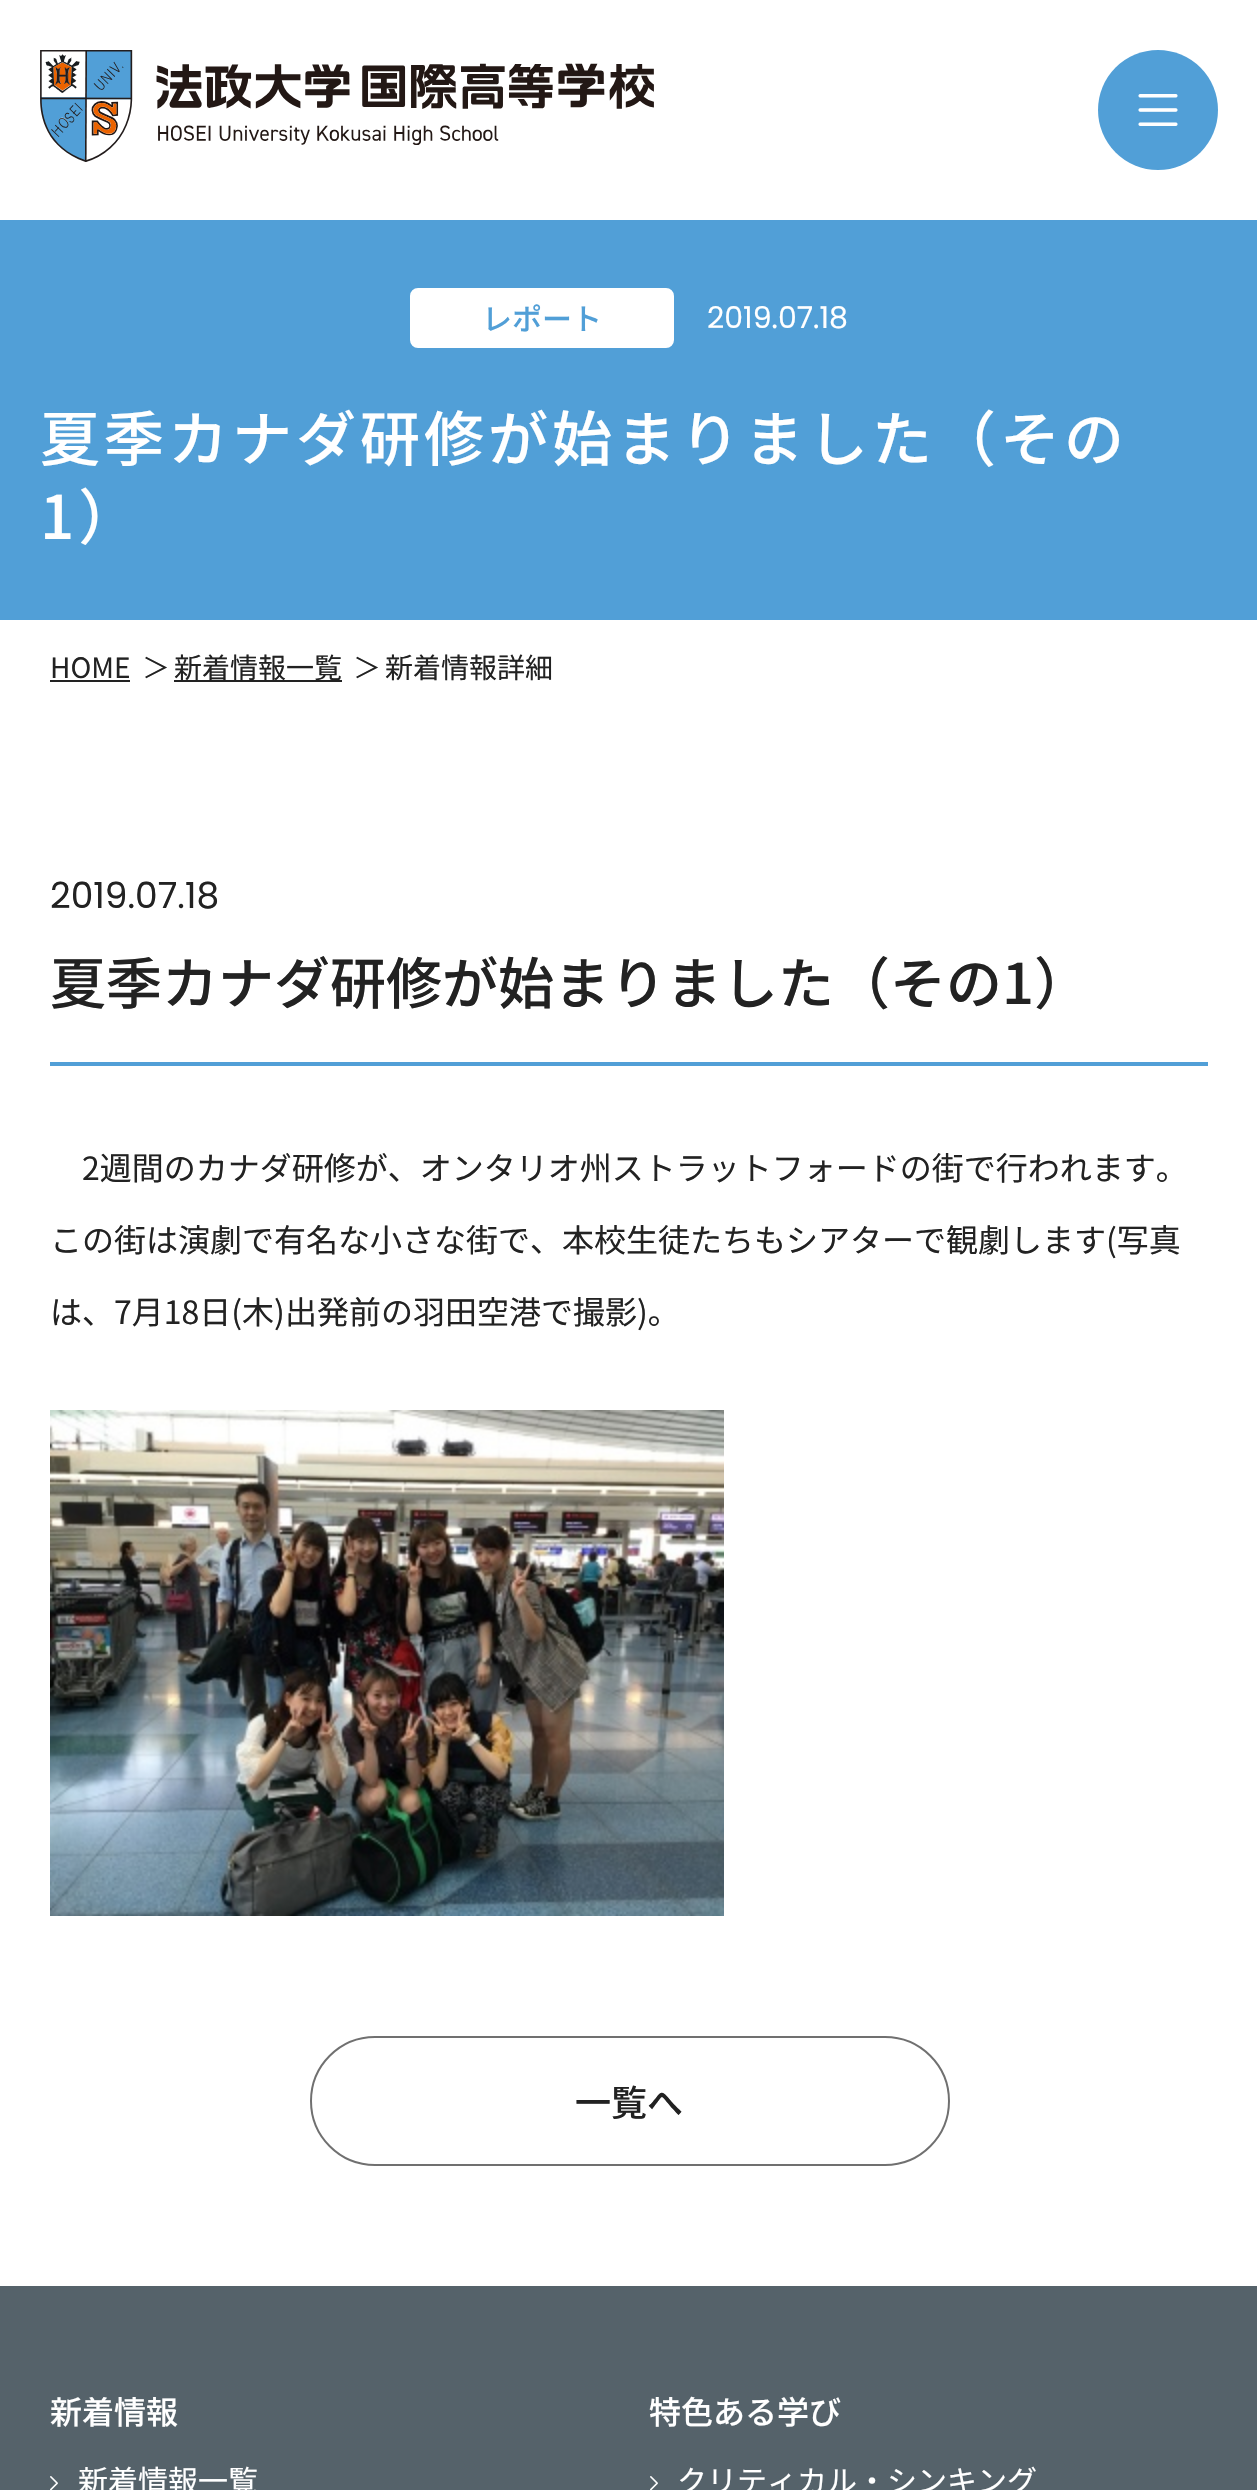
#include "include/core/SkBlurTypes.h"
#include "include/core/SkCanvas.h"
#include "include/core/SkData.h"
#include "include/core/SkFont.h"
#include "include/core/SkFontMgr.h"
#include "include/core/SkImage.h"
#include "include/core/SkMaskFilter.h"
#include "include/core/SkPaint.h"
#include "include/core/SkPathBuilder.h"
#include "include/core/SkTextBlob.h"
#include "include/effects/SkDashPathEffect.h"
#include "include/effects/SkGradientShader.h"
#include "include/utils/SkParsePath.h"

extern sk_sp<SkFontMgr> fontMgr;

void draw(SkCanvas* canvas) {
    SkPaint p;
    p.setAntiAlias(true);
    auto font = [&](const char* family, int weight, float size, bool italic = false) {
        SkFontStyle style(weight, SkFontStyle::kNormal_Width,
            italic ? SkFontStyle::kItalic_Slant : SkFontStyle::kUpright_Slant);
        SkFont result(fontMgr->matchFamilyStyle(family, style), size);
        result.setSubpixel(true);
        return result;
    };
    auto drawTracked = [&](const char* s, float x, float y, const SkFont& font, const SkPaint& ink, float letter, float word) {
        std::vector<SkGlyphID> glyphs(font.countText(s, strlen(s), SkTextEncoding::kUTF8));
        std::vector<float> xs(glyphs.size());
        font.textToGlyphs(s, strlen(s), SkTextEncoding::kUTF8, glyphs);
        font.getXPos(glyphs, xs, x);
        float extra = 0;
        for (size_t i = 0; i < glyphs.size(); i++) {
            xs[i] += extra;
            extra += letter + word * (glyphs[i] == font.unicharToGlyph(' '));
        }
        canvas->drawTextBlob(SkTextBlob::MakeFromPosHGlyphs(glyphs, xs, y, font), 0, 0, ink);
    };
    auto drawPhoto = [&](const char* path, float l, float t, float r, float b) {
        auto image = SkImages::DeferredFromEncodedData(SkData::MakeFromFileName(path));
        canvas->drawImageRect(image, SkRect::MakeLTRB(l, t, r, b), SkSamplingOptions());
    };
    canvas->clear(0xFFFFFFFF);
    drawPhoto("media/1.png", 40, 50, 654, 162);
    p.setColor(0xFF519FD7);
    canvas->drawCircle(1158, 110, 60, p);
    drawPhoto("media/2.png", 1138, 94, 1178, 126);
    canvas->drawRect(SkRect::MakeLTRB(0, 220, 1257, 620), p);
    p.setColor(0xFFFFFFFF);
    canvas->drawRoundRect(SkRect::MakeLTRB(411, 289, 673, 347), 7, 7, p);
    p.setStyle(SkPaint::kStroke_Style);
    p.setStrokeWidth(2);
    canvas->drawRoundRect(SkRect::MakeLTRB(411, 289, 673, 347), 7, 7, p);
    auto font1 = font("Noto Sans JP", 500, 30);
    p.setStyle(SkPaint::kFill_Style);
    p.setColor(0xFF519FD7);
    canvas->drawString("レポート", 482, 330, font1, p);
    auto font2 = font("Poppins", 400, 30);
    p.setColor(0xFFFFFFFF);
    canvas->drawString("2019.07.18", 707, 328, font2, p);
    auto font3 = font("Noto Sans JP", 500, 60);
    drawTracked("夏季カナダ研修が始まりました（その", 40, 461, font3, p, 4, 0);
    drawTracked("1）", 40, 539, font3, p, 4, 0);
    auto font4 = font("Noto Sans JP", 400, 28);
    p.setColor(0xFF222222);
    canvas->drawString("HOME", 50, 678, font4, p);
    canvas->drawRect(SkRect::MakeLTRB(50, 680, 130, 682), p);
    canvas->drawString("＞", 142, 678, font4, p);
    canvas->drawRect(SkRect::MakeLTRB(174, 680, 342, 682), p);
    {
        const struct { const char* s; float x, y; } items[] = {
            {"新着情報一覧", 174, 678},
            {"＞", 353, 678},
            {"新着情報詳細", 385, 678},
        };
        for (auto [s, x, y] : items) {
            canvas->drawString(s, x, y, font4, p);
        }
    }
    p.setColor(0xFF519FD7);
    canvas->drawRect(SkRect::MakeLTRB(50, 1062, 1208, 1066), p);
    auto font5 = font("Poppins", 400, 36);
    p.setColor(0xFF222222);
    canvas->drawString("2019.07.18", 50, 908, font5, p);
    auto font6 = font("Noto Sans JP", 500, 56);
    canvas->drawString("夏季カナダ研修が始まりました（その1）", 50, 1004, font6, p);
    auto font7 = font("Noto Sans JP", 400, 32);
    {
        const struct { const char* s; float x, y; } items[] = {
            {"2週間のカナダ研修が、オンタリオ州ストラットフォードの街で行われます。", 82, 1180},
            {"この街は演劇で有名な小さな街で、本校生徒たちもシアターで観劇します(写真", 50, 1252},
            {"は、7月18日(木)出発前の羽田空港で撮影)。", 50, 1324},
        };
        for (auto [s, x, y] : items) {
            canvas->drawString(s, x, y, font7, p);
        }
    }
    drawPhoto("media/3.png", 50, 1410, 724, 1916);
    p.setStyle(SkPaint::kStroke_Style);
    p.setColor(0xFF707070);
    canvas->drawRoundRect(SkRect::MakeLTRB(311, 2037, 949, 2165), 64, 64, p);
    auto font8 = font("Noto Sans JP", 500, 36);
    p.setStyle(SkPaint::kFill_Style);
    p.setColor(0xFF222222);
    canvas->drawString("一覧へ", 575, 2116, font8, p);
    p.setColor(0xFF55626A);
    canvas->drawRect(SkRect::MakeLTRB(0, 2286, 1257, 2490), p);
    auto font9 = font("Noto Sans JP", 500, 32);
    p.setColor(0xFFFFFFFF);
    canvas->drawString("新着情報", 50, 2424, font9, p);
    drawPhoto("media/4.png", 50, 2476, 58, 2490);
    auto font10 = font("Noto Sans JP", 400, 30);
    canvas->drawString("新着情報一覧", 78, 2492, font10, p);
    canvas->drawString("特色ある学び", 649, 2424, font9, p);
    drawPhoto("media/4.png", 650, 2476, 658, 2490);
    canvas->drawString("クリティカル・シンキング", 677, 2492, font10, p);
}
